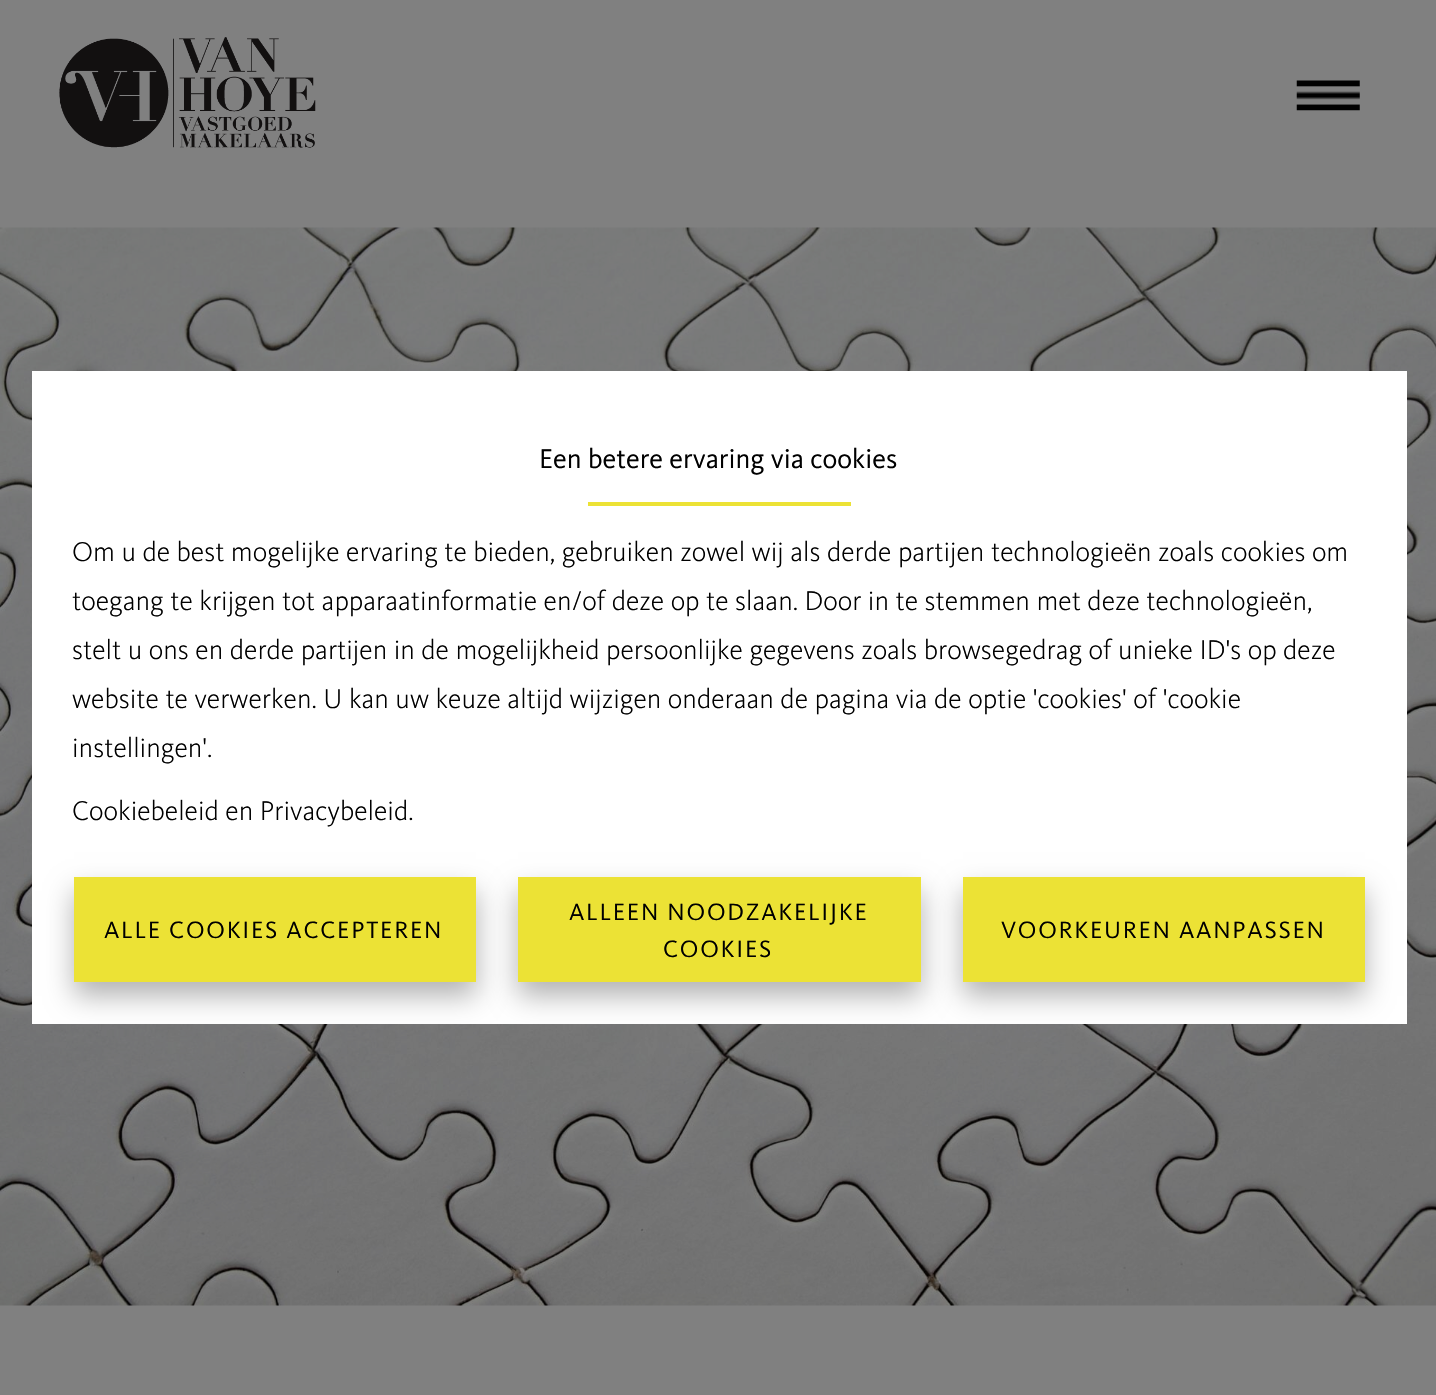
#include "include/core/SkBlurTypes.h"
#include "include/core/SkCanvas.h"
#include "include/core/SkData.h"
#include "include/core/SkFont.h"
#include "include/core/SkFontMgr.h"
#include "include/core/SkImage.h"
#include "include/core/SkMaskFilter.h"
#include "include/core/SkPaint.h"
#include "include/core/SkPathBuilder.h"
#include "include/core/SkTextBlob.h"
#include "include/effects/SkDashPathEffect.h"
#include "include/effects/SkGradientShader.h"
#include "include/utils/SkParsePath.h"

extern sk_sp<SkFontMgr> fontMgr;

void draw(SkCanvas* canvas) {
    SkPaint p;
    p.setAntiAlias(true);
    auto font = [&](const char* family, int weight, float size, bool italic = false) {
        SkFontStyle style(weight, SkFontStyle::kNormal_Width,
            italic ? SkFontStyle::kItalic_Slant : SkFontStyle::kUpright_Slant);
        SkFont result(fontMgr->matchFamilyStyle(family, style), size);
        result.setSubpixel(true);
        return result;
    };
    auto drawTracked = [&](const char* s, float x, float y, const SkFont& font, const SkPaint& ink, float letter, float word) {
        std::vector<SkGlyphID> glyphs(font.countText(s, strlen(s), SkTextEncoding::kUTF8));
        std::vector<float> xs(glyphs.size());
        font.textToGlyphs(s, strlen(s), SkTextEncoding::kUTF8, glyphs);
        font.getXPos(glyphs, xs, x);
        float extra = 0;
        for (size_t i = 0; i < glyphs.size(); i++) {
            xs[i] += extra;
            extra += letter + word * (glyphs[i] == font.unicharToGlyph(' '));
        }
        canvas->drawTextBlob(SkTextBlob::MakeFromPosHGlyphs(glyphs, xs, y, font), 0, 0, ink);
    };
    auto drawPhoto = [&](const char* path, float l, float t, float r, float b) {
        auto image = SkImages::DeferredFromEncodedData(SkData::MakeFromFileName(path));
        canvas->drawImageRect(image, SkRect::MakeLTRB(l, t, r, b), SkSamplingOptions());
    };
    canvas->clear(0xFF808080);
    drawPhoto("media/1.png", 59, 37, 316, 148);
    drawPhoto("media/2.png", 1296, 80, 1360, 111);
    drawPhoto("media/3.png", 0, 227, 1436, 1306);
    p.setColor(0xFFFFFFFF);
    canvas->drawRect(SkRect::MakeLTRB(32, 371, 1407, 1024), p);
    auto font1 = font("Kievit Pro", 400, 28);
    p.setColor(0xFF000000);
    canvas->drawString("Een betere ervaring via cookies", 539, 468, font1, p);
    p.setColor(0xFFECE235);
    canvas->drawRect(SkRect::MakeLTRB(588, 502, 851, 506), p);
    auto font2 = font("Kievit Pro", 300, 28);
    p.setColor(0xFF000000);
    {
        const struct { const char* s; float x, y; } items[] = {
            {"Om u de best mogelijke ervaring te bieden, gebruiken zowel wij als derde partijen technologieën zoals cookies om", 72, 561},
            {"toegang te krijgen tot apparaatinformatie en/of deze op te slaan. Door in te stemmen met deze technologieën,", 72, 610},
            {"stelt u ons en derde partijen in de mogelijkheid persoonlijke gegevens zoals browsegedrag of unieke ID's op deze", 72, 659},
            {"website te verwerken. U kan uw keuze altijd wijzigen onderaan de pagina via de optie 'cookies' of 'cookie", 72, 708},
            {"instellingen'.", 72, 757},
            {"Cookiebeleid en Privacybeleid.", 72, 820},
        };
        for (auto [s, x, y] : items) {
            canvas->drawString(s, x, y, font2, p);
        }
    }
    p.setColor(0x4D000000);
    p.setMaskFilter(SkMaskFilter::MakeBlur(kNormal_SkBlurStyle, 13));
    canvas->drawRect(SkRect::MakeLTRB(74, 891, 476, 996), p);
    p.setMaskFilter(nullptr);
    p.setColor(0xFFECE235);
    canvas->drawRect(SkRect::MakeLTRB(74, 877, 476, 982), p);
    auto font3 = font("Kievit Pro", 400, 24.5f);
    p.setColor(0xFF000000);
    drawTracked("ALLE COOKIES ACCEPTEREN", 104, 938, font3, p, 1.75f, 0);
    p.setColor(0x4D000000);
    p.setMaskFilter(SkMaskFilter::MakeBlur(kNormal_SkBlurStyle, 13));
    canvas->drawRect(SkRect::MakeLTRB(518, 891, 921, 996), p);
    p.setMaskFilter(nullptr);
    p.setColor(0xFFECE235);
    canvas->drawRect(SkRect::MakeLTRB(518, 877, 921, 982), p);
    p.setColor(0xFF000000);
    drawTracked("ALLEEN NOODZAKELIJKE", 569, 920, font3, p, 1.75f, 0);
    drawTracked("COOKIES", 663, 957, font3, p, 1.75f, 0);
    p.setColor(0x4D000000);
    p.setMaskFilter(SkMaskFilter::MakeBlur(kNormal_SkBlurStyle, 13));
    canvas->drawRect(SkRect::MakeLTRB(963, 891, 1365, 996), p);
    p.setMaskFilter(nullptr);
    p.setColor(0xFFECE235);
    canvas->drawRect(SkRect::MakeLTRB(963, 877, 1365, 982), p);
    p.setColor(0xFF000000);
    drawTracked("VOORKEUREN AANPASSEN", 1001, 938, font3, p, 1.75f, 0);
}
